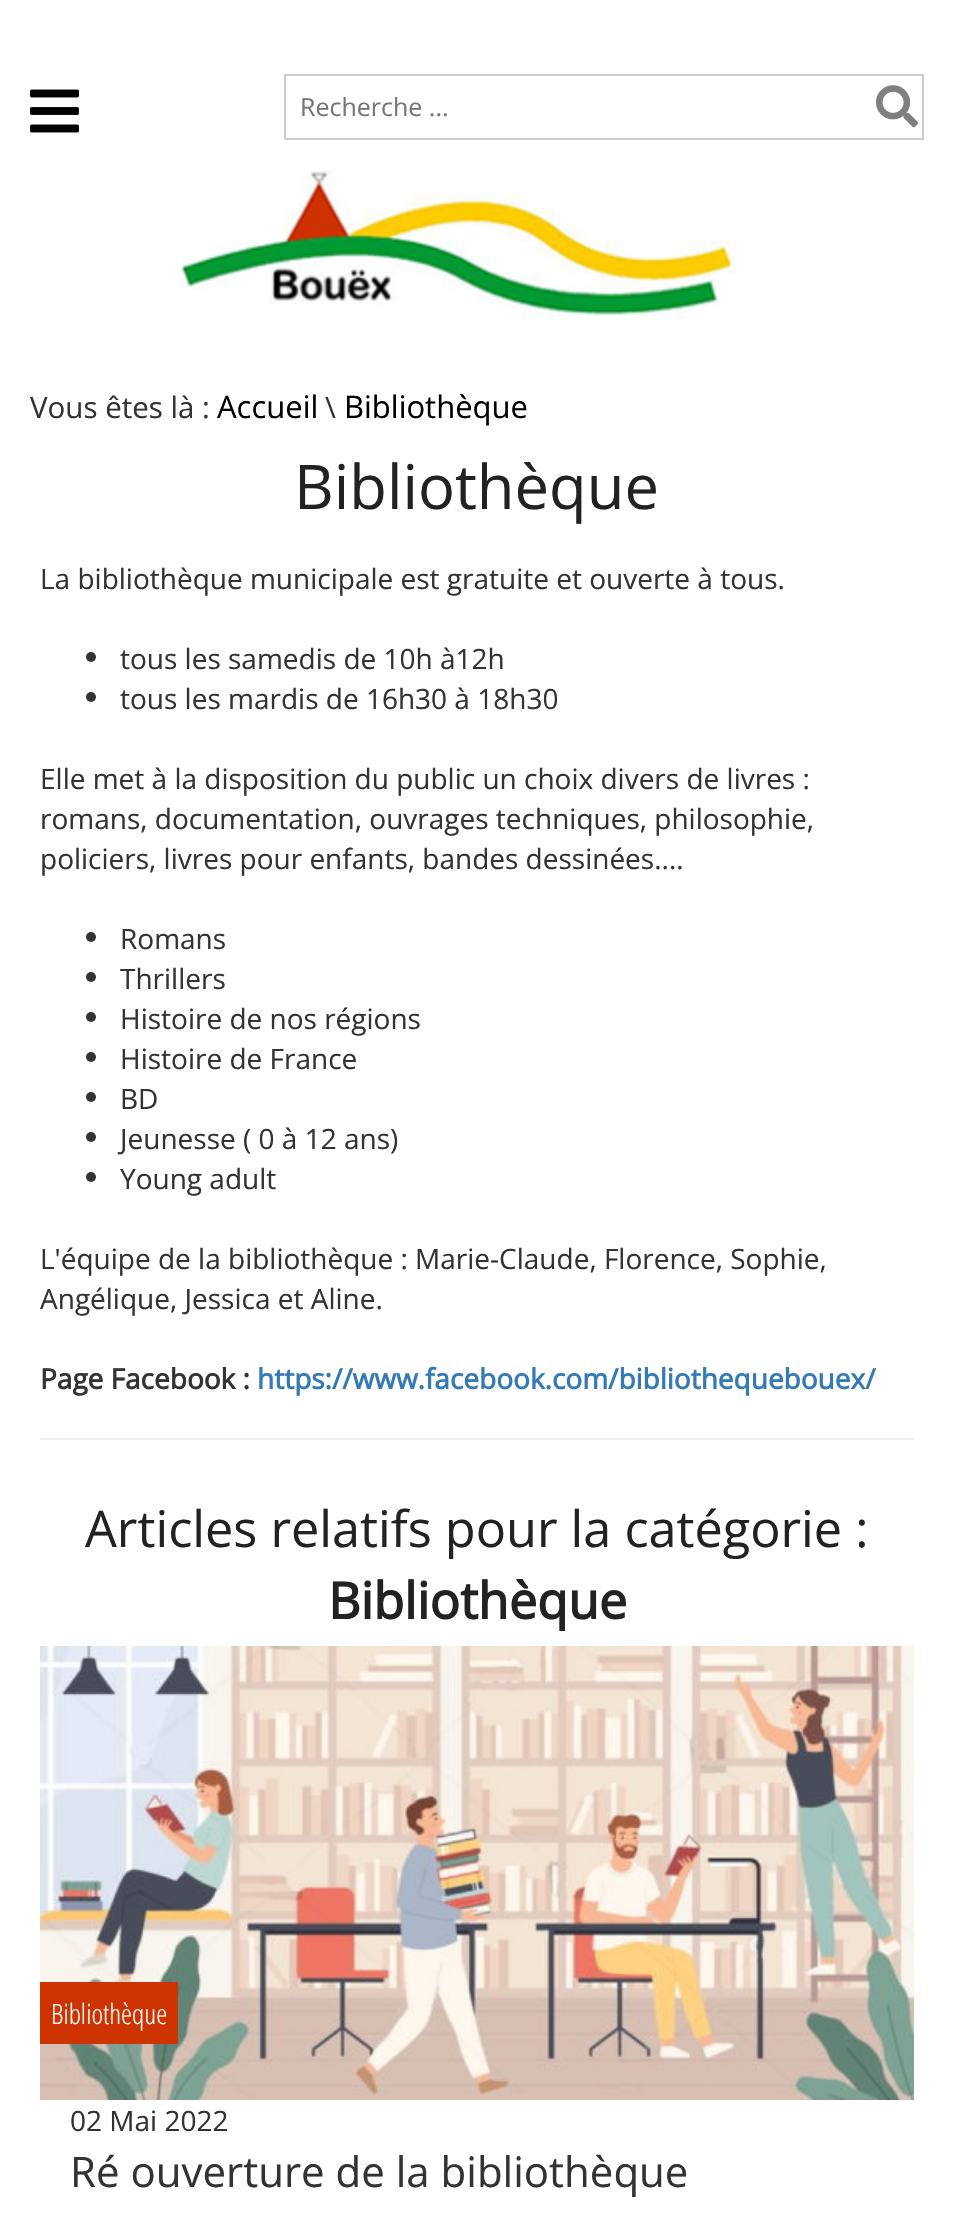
#include "include/core/SkBlurTypes.h"
#include "include/core/SkCanvas.h"
#include "include/core/SkData.h"
#include "include/core/SkFont.h"
#include "include/core/SkFontMgr.h"
#include "include/core/SkImage.h"
#include "include/core/SkMaskFilter.h"
#include "include/core/SkPaint.h"
#include "include/core/SkPathBuilder.h"
#include "include/core/SkTextBlob.h"
#include "include/effects/SkDashPathEffect.h"
#include "include/effects/SkGradientShader.h"
#include "include/utils/SkParsePath.h"

extern sk_sp<SkFontMgr> fontMgr;

void draw(SkCanvas* canvas) {
    SkPaint p;
    p.setAntiAlias(true);
    auto font = [&](const char* family, int weight, float size, bool italic = false) {
        SkFontStyle style(weight, SkFontStyle::kNormal_Width,
            italic ? SkFontStyle::kItalic_Slant : SkFontStyle::kUpright_Slant);
        SkFont result(fontMgr->matchFamilyStyle(family, style), size);
        result.setSubpixel(true);
        return result;
    };
    auto drawPhoto = [&](const char* path, float l, float t, float r, float b) {
        auto image = SkImages::DeferredFromEncodedData(SkData::MakeFromFileName(path));
        canvas->drawImageRect(image, SkRect::MakeLTRB(l, t, r, b), SkSamplingOptions());
    };
    canvas->clear(0xFFFFFFFF);
    drawPhoto("media/1.png", 30, 89, 79, 133);
    p.setStyle(SkPaint::kStroke_Style);
    p.setStrokeWidth(2);
    p.setColor(0xFFCCCCCC);
    canvas->drawRect(SkRect::MakeLTRB(285, 75, 923, 139), p);
    auto font1 = font("Open Sans", 400, 25);
    p.setStyle(SkPaint::kFill_Style);
    p.setColor(0xFF757575);
    canvas->drawString("Recherche ...", 300, 116, font1, p);
    drawPhoto("media/2.png", 876, 85, 918, 128);
    drawPhoto("media/3.png", 181, 170, 737, 321);
    auto font2 = font("Open Sans", 400, 29.5f);
    p.setColor(0xFF333333);
    canvas->drawString("Vous êtes là :", 30, 418, font2, p);
    auto font3 = font("Open Sans", 400, 31);
    p.setColor(0xFF000000);
    canvas->drawString("Accueil", 217, 418, font3, p);
    p.setColor(0xFF333333);
    canvas->drawString("\\", 325, 418, font2, p);
    p.setColor(0xFF000000);
    canvas->drawString("Bibliothèque", 344, 418, font3, p);
    auto font4 = font("Open Sans", 400, 61.5f);
    p.setColor(0xFF222222);
    canvas->drawString("Bibliothèque", 294, 509, font4, p);
    auto font5 = font("Open Sans", 400, 28);
    p.setColor(0xFF333333);
    canvas->drawString("La bibliothèque municipale est gratuite et ouverte à tous.", 40, 589, font5, p);
    canvas->drawCircle(91, 657, 5, p);
    canvas->drawString("tous les samedis de 10h à12h", 120, 669, font5, p);
    canvas->drawCircle(91, 697, 5, p);
    {
        const struct { const char* s; float x, y; } items[] = {
            {"tous les mardis de 16h30 à 18h30", 120, 709},
            {"Elle met à la disposition du public un choix divers de livres :", 40, 789},
            {"romans, documentation, ouvrages techniques, philosophie,", 40, 829},
            {"policiers, livres pour enfants, bandes dessinées....", 40, 869},
        };
        for (auto [s, x, y] : items) {
            canvas->drawString(s, x, y, font5, p);
        }
    }
    canvas->drawCircle(91, 937, 5, p);
    canvas->drawString("Romans", 120, 949, font5, p);
    canvas->drawCircle(91, 977, 5, p);
    canvas->drawString("Thrillers", 120, 989, font5, p);
    canvas->drawCircle(91, 1017, 5, p);
    canvas->drawString("Histoire de nos régions", 120, 1029, font5, p);
    canvas->drawCircle(91, 1057, 5, p);
    canvas->drawString("Histoire de France", 120, 1069, font5, p);
    canvas->drawCircle(91, 1097, 5, p);
    canvas->drawString("BD", 120, 1109, font5, p);
    canvas->drawCircle(91, 1137, 5, p);
    canvas->drawString("Jeunesse ( 0 à 12 ans)", 120, 1149, font5, p);
    canvas->drawCircle(91, 1177, 5, p);
    {
        const struct { const char* s; float x, y; } items[] = {
            {"Young adult", 120, 1189},
            {"L'équipe de la bibliothèque : Marie-Claude, Florence, Sophie,", 40, 1269},
            {"Angélique, Jessica et Aline.", 40, 1309},
        };
        for (auto [s, x, y] : items) {
            canvas->drawString(s, x, y, font5, p);
        }
    }
    auto font6 = font("Open Sans", 700, 28);
    canvas->drawString("Page Facebook :", 40, 1389, font6, p);
    p.setColor(0xFF337AB7);
    canvas->drawString("https://www.facebook.com/bibliothequebouex/", 257, 1389, font6, p);
    p.setColor(0xFFEEEEEE);
    canvas->drawRect(SkRect::MakeLTRB(40, 1438, 914, 1440), p);
    auto font7 = font("Open Sans", 400, 50.4f);
    p.setColor(0xFF222222);
    canvas->drawString("Articles relatifs pour la catégorie :", 85, 1547, font7, p);
    auto font8 = font("Open Sans", 700, 50.4f);
    canvas->drawString("Bibliothèque", 328, 1619, font8, p);
    drawPhoto("media/4.png", 40, 1646, 914, 2100);
    p.setColor(0xFFCD3401);
    canvas->drawRect(SkRect::MakeLTRB(40, 1982, 178, 2044), p);
    auto font9 = font("Open Sans Condensed", 300, 28);
    p.setColor(0xFFFFFFFF);
    canvas->drawString("Bibliothèque", 51, 2024, font9, p);
    p.setColor(0xFF333333);
    canvas->drawString("02 Mai 2022", 70, 2131, font5, p);
    auto font10 = font("Open Sans", 400, 42);
    canvas->drawString("Ré ouverture de la bibliothèque", 70, 2187, font10, p);
}
